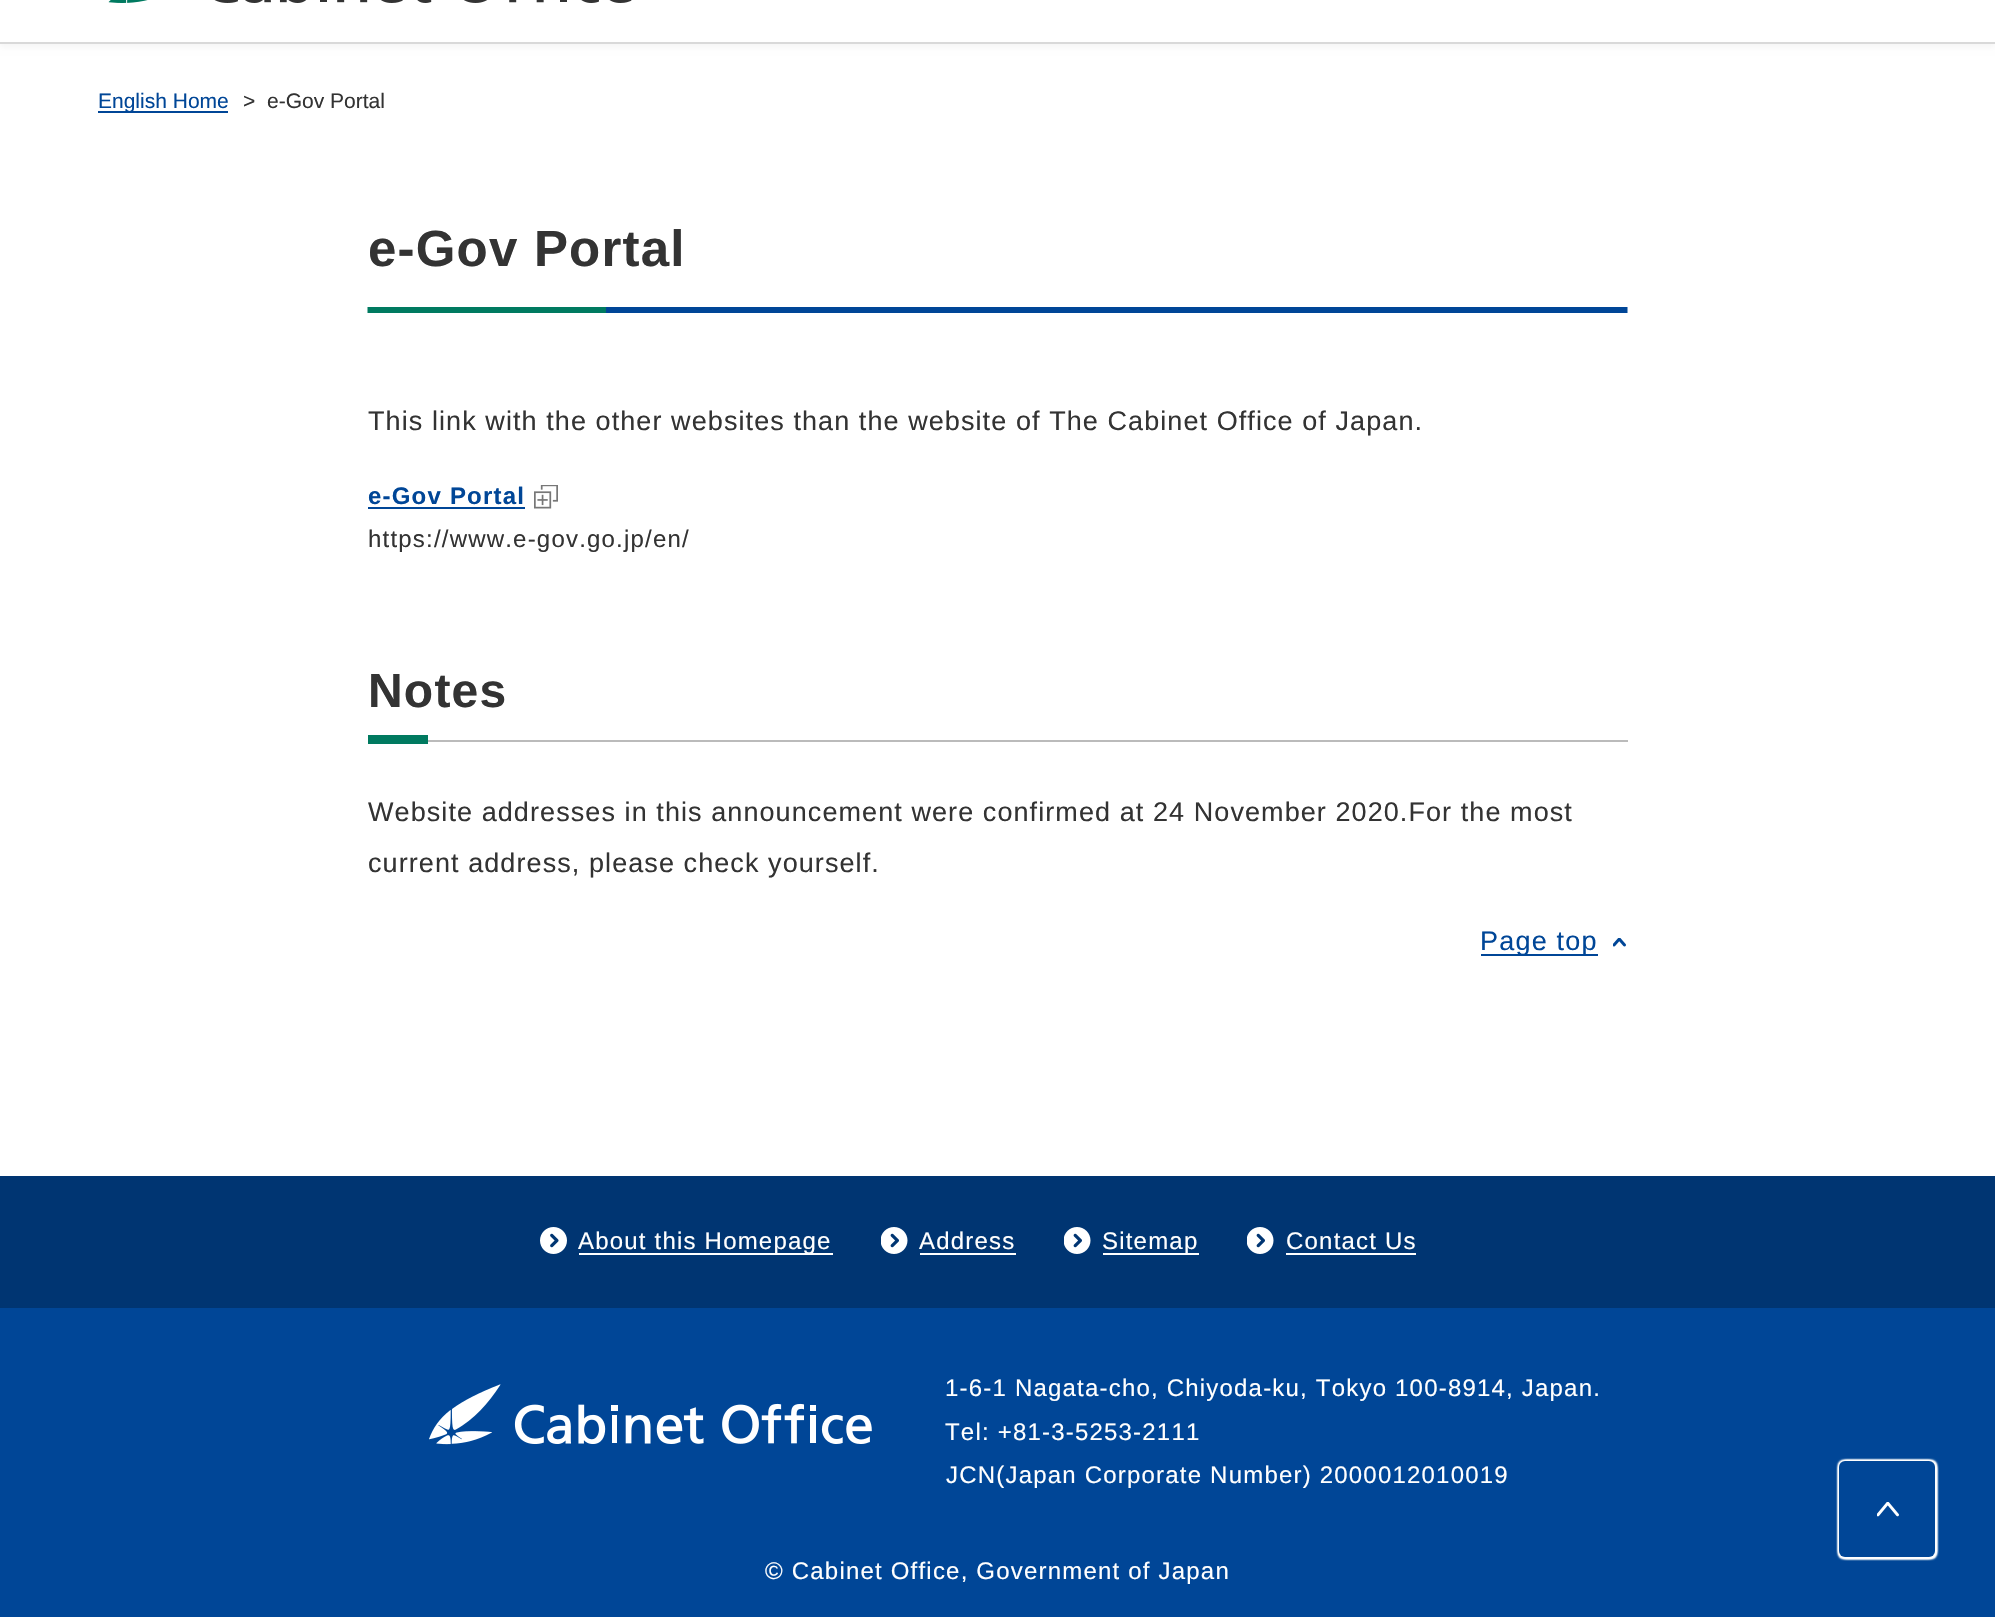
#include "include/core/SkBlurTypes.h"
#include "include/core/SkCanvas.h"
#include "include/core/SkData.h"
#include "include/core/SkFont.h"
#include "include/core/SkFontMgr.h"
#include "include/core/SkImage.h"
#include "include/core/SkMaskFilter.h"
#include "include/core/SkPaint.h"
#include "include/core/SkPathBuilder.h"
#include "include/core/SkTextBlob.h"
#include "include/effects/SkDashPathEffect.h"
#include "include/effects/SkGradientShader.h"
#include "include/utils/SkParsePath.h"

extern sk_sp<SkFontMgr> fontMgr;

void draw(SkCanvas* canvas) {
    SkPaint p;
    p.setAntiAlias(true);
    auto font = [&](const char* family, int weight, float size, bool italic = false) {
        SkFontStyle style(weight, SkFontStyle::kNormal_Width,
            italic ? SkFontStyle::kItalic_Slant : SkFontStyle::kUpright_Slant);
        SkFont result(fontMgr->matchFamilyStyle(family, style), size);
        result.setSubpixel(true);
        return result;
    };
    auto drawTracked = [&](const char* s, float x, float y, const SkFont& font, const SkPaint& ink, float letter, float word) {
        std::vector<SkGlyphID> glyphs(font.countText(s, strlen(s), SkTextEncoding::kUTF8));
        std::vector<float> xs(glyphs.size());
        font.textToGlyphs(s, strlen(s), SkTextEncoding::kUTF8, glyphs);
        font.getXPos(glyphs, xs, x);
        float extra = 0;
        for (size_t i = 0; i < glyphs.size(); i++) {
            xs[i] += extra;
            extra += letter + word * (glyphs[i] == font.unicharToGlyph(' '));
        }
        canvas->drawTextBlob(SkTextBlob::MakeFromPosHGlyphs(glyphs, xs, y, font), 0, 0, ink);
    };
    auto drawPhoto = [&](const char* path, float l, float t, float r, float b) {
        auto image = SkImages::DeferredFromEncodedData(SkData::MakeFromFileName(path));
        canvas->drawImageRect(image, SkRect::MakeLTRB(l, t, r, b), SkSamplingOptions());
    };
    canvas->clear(0xFFFFFFFF);
    p.setColor(0x0A000000);
    p.setMaskFilter(SkMaskFilter::MakeBlur(kNormal_SkBlurStyle, 3));
    canvas->drawRect(SkRect::MakeLTRB(0, -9, 1995, 47), p);
    p.setMaskFilter(nullptr);
    p.setColor(0xFFFFFFFF);
    canvas->drawRect(SkRect::MakeLTRB(0, 0, 1995, 42), p);
    p.setColor(0xFFD9D9D9);
    canvas->drawRect(SkRect::MakeLTRB(0, 42, 1995, 44), p);
    drawPhoto("media/1.png", 108, 0, 632, 3);
    p.setColor(0xFF004697);
    canvas->drawRect(SkRect::MakeLTRB(98, 111, 228, 113), p);
    auto font1 = font("Liberation Sans", 400, 21);
    canvas->drawString("English Home", 98, 108, font1, p);
    p.setColor(0xFF333333);
    canvas->drawString(">", 243, 108, font1, p);
    canvas->drawString("e-Gov Portal", 267, 108, font1, p);
    drawPhoto("media/2.png", 367, 307, 1628, 313);
    auto font2 = font("Liberation Sans", 700, 51);
    drawTracked("e-Gov Portal", 368, 266, font2, p, 1.2f, 0);
    auto font3 = font("Liberation Sans", 400, 27);
    drawTracked("This link with the other websites than the website of The Cabinet Office of Japan.", 368, 430, font3, p, 1.08f, 0);
    auto font4 = font("Liberation Sans", 700, 24);
    p.setColor(0xFF004697);
    drawTracked("e-Gov Portal", 368, 504, font4, p, 1.2f, 0);
    canvas->drawRect(SkRect::MakeLTRB(368, 507, 525, 509), p);
    drawPhoto("media/3.png", 534, 485, 558, 509);
    auto font5 = font("Liberation Sans", 400, 24);
    p.setColor(0xFF333333);
    drawTracked("https://www.e-gov.go.jp/en/", 368, 547, font5, p, 1.2f, 0);
    p.setColor(0xFFBBBBBB);
    canvas->drawRect(SkRect::MakeLTRB(428, 740, 1628, 742), p);
    auto font6 = font("Liberation Sans", 700, 48);
    p.setColor(0xFF333333);
    drawTracked("Notes", 368, 707, font6, p, 1.2f, 0);
    p.setColor(0xFF007A60);
    canvas->drawRect(SkRect::MakeLTRB(368, 735, 428, 744), p);
    p.setColor(0xFF333333);
    drawTracked("Website addresses in this announcement were confirmed at 24 November 2020.For the most", 368, 821, font3, p, 1.08f, 0);
    drawTracked("current address, please check yourself.", 368, 872, font3, p, 1.08f, 0);
    p.setColor(0xFF004697);
    canvas->drawRect(SkRect::MakeLTRB(1481, 954, 1598, 956), p);
    drawTracked("Page top", 1480, 950, font3, p, 1.2f, 0);
    drawPhoto("media/4.png", 1613, 938, 1626, 947);
    p.setColor(0xFF003572);
    canvas->drawRect(SkRect::MakeLTRB(0, 1176, 1995, 1308), p);
    drawPhoto("media/5.png", 540, 1227, 567, 1254);
    p.setColor(0xFFFFFFFF);
    canvas->drawRect(SkRect::MakeLTRB(579, 1253, 833, 1255), p);
    drawTracked("About this Homepage", 578, 1249, font5, p, 1.2f, 0);
    drawPhoto("media/6.png", 881, 1227, 908, 1254);
    drawTracked("Address", 919, 1249, font5, p, 1.2f, 0);
    canvas->drawRect(SkRect::MakeLTRB(920, 1253, 1016, 1255), p);
    drawPhoto("media/6.png", 1064, 1227, 1091, 1254);
    canvas->drawRect(SkRect::MakeLTRB(1103, 1253, 1199, 1255), p);
    drawTracked("Sitemap", 1102, 1249, font5, p, 1.2f, 0);
    drawPhoto("media/6.png", 1247, 1227, 1274, 1254);
    drawTracked("Contact Us", 1286, 1249, font5, p, 1.2f, 0);
    canvas->drawRect(SkRect::MakeLTRB(1286, 1253, 1416, 1255), p);
    p.setColor(0xFF004697);
    canvas->drawRect(SkRect::MakeLTRB(0, 1308, 1995, 1617), p);
    drawPhoto("media/7.png", 429, 1384, 872, 1445);
    p.setColor(0xFFFFFFFF);
    {
        const struct { const char* s; float x, y; } items[] = {
            {"1-6-1 Nagata-cho, Chiyoda-ku, Tokyo 100-8914, Japan.", 945, 1396},
            {"Tel: +81-3-5253-2111", 945, 1440},
            {"JCN(Japan Corporate Number) 2000012010019", 946, 1483},
            {"© Cabinet Office, Government of Japan", 765, 1579},
        };
        for (auto [s, x, y] : items) {
            drawTracked(s, x, y, font5, p, 1.2f, 0);
        }
    }
    p.setMaskFilter(SkMaskFilter::MakeBlur(kNormal_SkBlurStyle, 1));
    canvas->drawRoundRect(SkRect::MakeLTRB(1839, 1461, 1935, 1557), 6, 6, p);
    p.setMaskFilter(nullptr);
    p.setMaskFilter(SkMaskFilter::MakeBlur(kNormal_SkBlurStyle, 1));
    canvas->drawRoundRect(SkRect::MakeLTRB(1839, 1461, 1935, 1557), 6, 6, p);
    p.setMaskFilter(nullptr);
    p.setMaskFilter(SkMaskFilter::MakeBlur(kNormal_SkBlurStyle, 1));
    canvas->drawRoundRect(SkRect::MakeLTRB(1838, 1460, 1934, 1556), 6, 6, p);
    p.setMaskFilter(nullptr);
    p.setMaskFilter(SkMaskFilter::MakeBlur(kNormal_SkBlurStyle, 1));
    canvas->drawRoundRect(SkRect::MakeLTRB(1838, 1460, 1934, 1556), 6, 6, p);
    p.setMaskFilter(nullptr);
    p.setMaskFilter(SkMaskFilter::MakeBlur(kNormal_SkBlurStyle, 1));
    canvas->drawRoundRect(SkRect::MakeLTRB(1838, 1463, 1934, 1559), 6, 6, p);
    p.setMaskFilter(nullptr);
    p.setMaskFilter(SkMaskFilter::MakeBlur(kNormal_SkBlurStyle, 1));
    canvas->drawRoundRect(SkRect::MakeLTRB(1838, 1463, 1934, 1559), 6, 6, p);
    p.setMaskFilter(nullptr);
    p.setMaskFilter(SkMaskFilter::MakeBlur(kNormal_SkBlurStyle, 1));
    canvas->drawRoundRect(SkRect::MakeLTRB(1841, 1460, 1937, 1556), 6, 6, p);
    p.setMaskFilter(nullptr);
    p.setMaskFilter(SkMaskFilter::MakeBlur(kNormal_SkBlurStyle, 1));
    canvas->drawRoundRect(SkRect::MakeLTRB(1841, 1460, 1937, 1556), 6, 6, p);
    p.setMaskFilter(nullptr);
    p.setMaskFilter(SkMaskFilter::MakeBlur(kNormal_SkBlurStyle, 1));
    canvas->drawRoundRect(SkRect::MakeLTRB(1841, 1463, 1937, 1559), 6, 6, p);
    p.setMaskFilter(nullptr);
    p.setMaskFilter(SkMaskFilter::MakeBlur(kNormal_SkBlurStyle, 1));
    canvas->drawRoundRect(SkRect::MakeLTRB(1841, 1463, 1937, 1559), 6, 6, p);
    p.setMaskFilter(nullptr);
    p.setColor(0xFF004697);
    canvas->drawRoundRect(SkRect::MakeLTRB(1839, 1461, 1935, 1557), 6, 6, p);
    drawPhoto("media/8.png", 1877, 1502, 1899, 1517);
}
